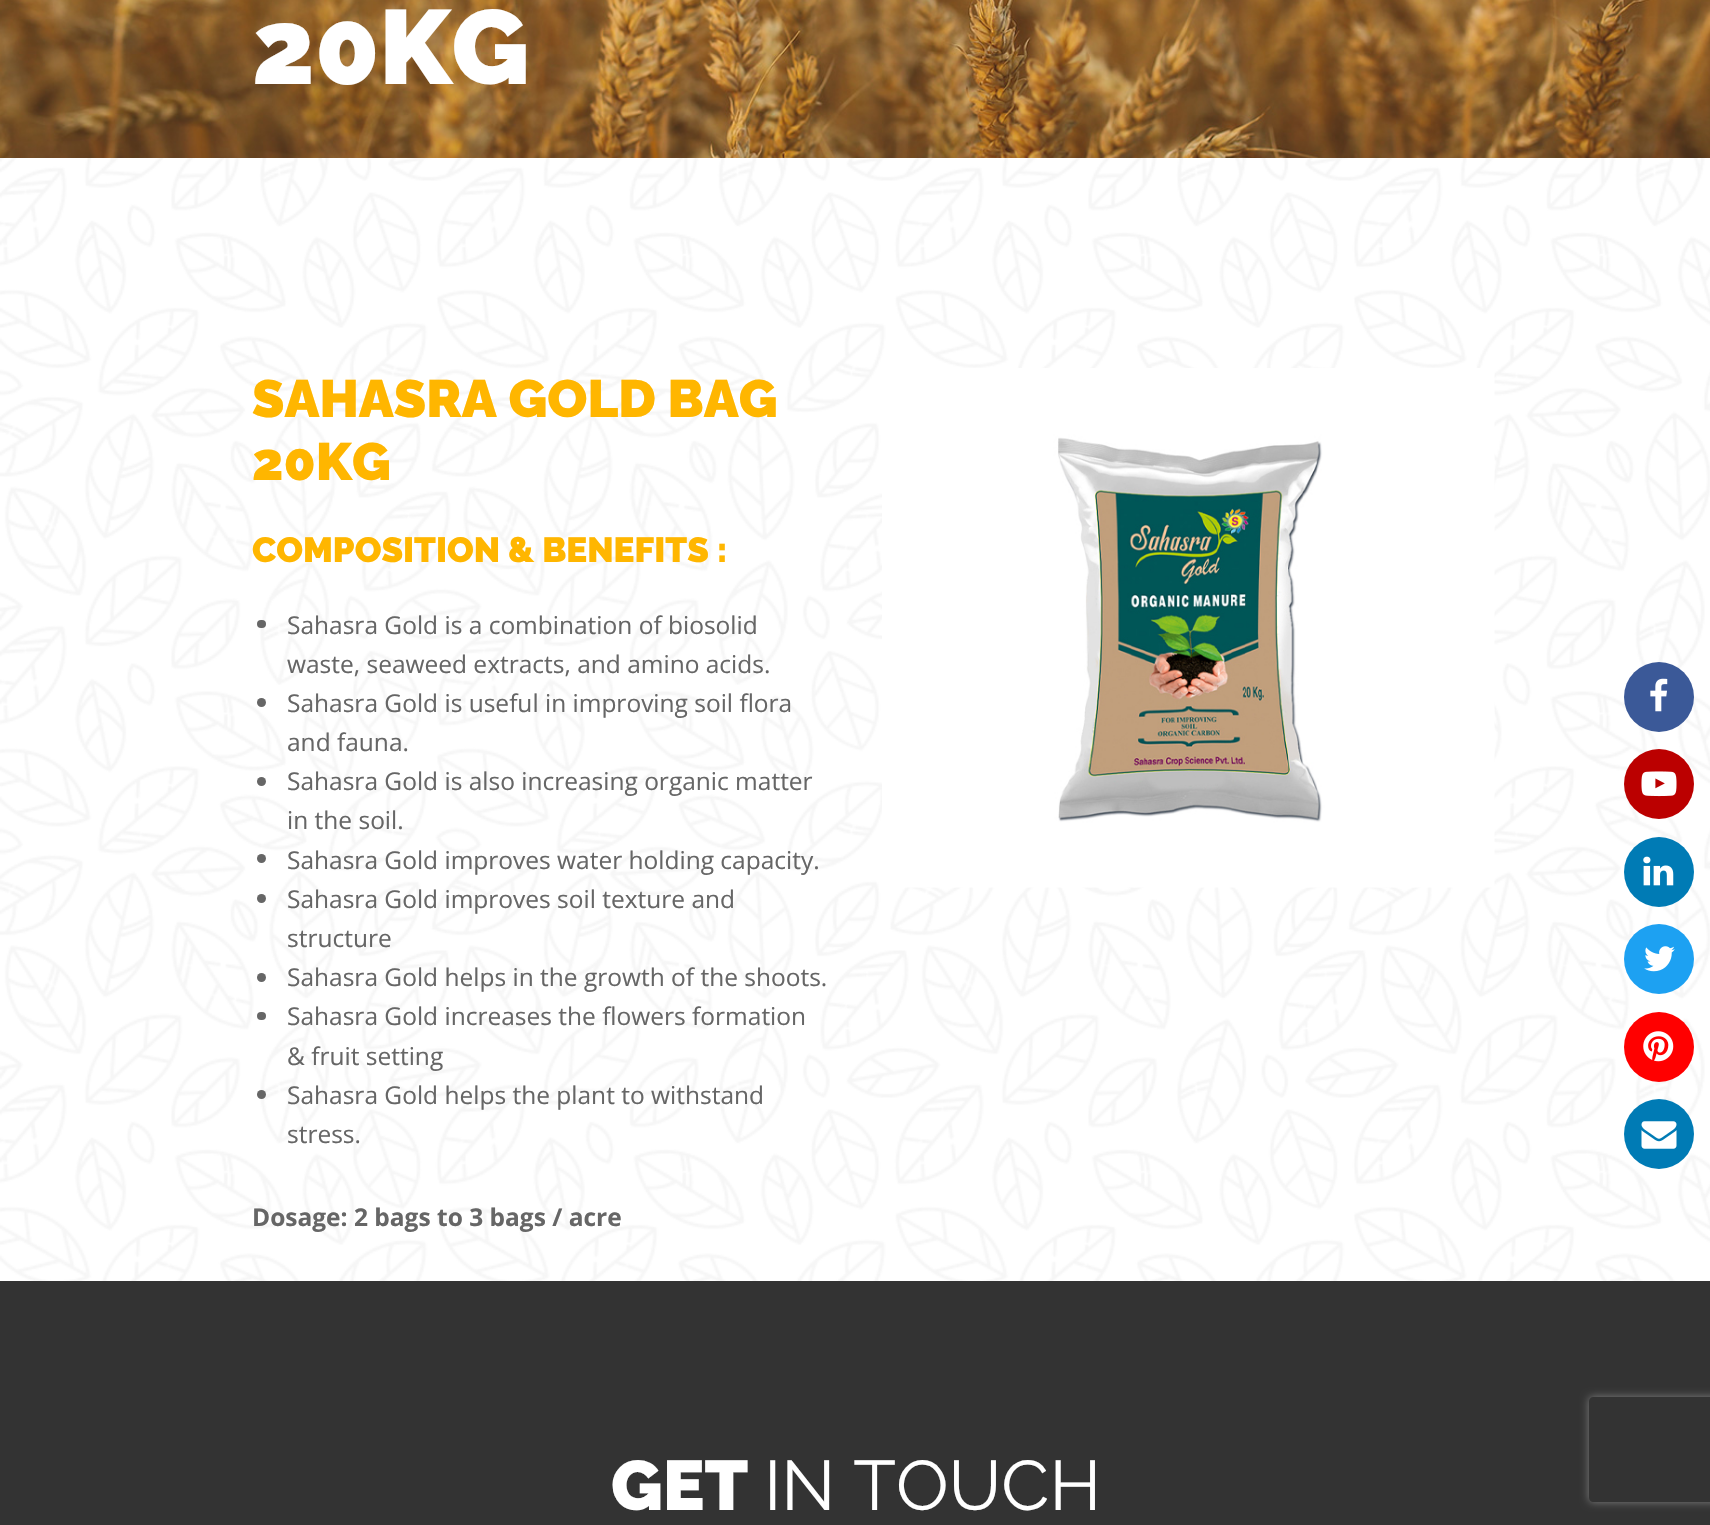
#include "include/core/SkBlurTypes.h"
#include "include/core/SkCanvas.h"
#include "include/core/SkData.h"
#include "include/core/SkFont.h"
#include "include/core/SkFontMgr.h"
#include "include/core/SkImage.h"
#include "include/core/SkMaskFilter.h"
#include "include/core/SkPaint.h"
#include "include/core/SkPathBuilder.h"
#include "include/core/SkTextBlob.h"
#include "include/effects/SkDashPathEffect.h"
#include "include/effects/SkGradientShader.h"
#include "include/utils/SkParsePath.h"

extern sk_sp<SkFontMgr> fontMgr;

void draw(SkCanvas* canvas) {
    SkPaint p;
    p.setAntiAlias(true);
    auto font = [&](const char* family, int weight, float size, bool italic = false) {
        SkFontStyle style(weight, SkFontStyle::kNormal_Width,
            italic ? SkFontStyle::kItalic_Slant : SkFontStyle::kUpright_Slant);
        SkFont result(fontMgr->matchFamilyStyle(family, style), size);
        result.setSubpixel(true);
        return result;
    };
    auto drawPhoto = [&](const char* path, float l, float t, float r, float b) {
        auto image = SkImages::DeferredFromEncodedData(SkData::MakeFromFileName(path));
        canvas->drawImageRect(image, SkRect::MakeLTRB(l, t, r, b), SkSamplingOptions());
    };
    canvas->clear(0xFFFFFFFF);
    drawPhoto("media/1.png", 0, 158, 1710, 1281);
    drawPhoto("media/2.png", 0, 0, 1710, 158);
    auto font1 = font("Raleway", 900, 105);
    p.setColor(0xFFFFFFFF);
    canvas->drawString("20KG", 252, 84, font1, p);
    auto font2 = font("Raleway", 900, 52.5f);
    p.setColor(0xFFFFB600);
    canvas->drawString("SAHASRA GOLD BAG", 252, 417, font2, p);
    canvas->drawString("20KG", 252, 480, font2, p);
    auto font3 = font("Raleway", 900, 35);
    canvas->drawString("COMPOSITION & BENEFITS :", 252, 562, font3, p);
    p.setColor(0xFF666666);
    canvas->drawRoundRect(SkRect::MakeLTRB(257, 620, 266, 628), 4, 4, p);
    auto font4 = font("Open Sans", 400, 24.5f);
    canvas->drawString("Sahasra Gold is a combination of biosolid", 287, 634, font4, p);
    canvas->drawString("waste, seaweed extracts, and amino acids.", 287, 673, font4, p);
    canvas->drawCircle(261.5f, 702.5f, 4.5f, p);
    canvas->drawString("Sahasra Gold is useful in improving soil flora", 287, 712, font4, p);
    canvas->drawString("and fauna.", 287, 751, font4, p);
    canvas->drawCircle(261.5f, 781.5f, 4.5f, p);
    canvas->drawString("Sahasra Gold is also increasing organic matter", 287, 790, font4, p);
    canvas->drawString("in the soil.", 287, 829, font4, p);
    canvas->drawCircle(261.5f, 858.5f, 4.5f, p);
    canvas->drawString("Sahasra Gold improves water holding capacity.", 287, 869, font4, p);
    canvas->drawCircle(261.5f, 898.5f, 4.5f, p);
    canvas->drawString("Sahasra Gold improves soil texture and", 287, 908, font4, p);
    canvas->drawString("structure", 287, 947, font4, p);
    canvas->drawCircle(261.5f, 977.5f, 4.5f, p);
    canvas->drawString("Sahasra Gold helps in the growth of the shoots.", 287, 986, font4, p);
    canvas->drawRoundRect(SkRect::MakeLTRB(257, 1012, 266, 1020), 4, 4, p);
    canvas->drawString("Sahasra Gold increases the flowers formation", 287, 1025, font4, p);
    canvas->drawString("& fruit setting", 287, 1065, font4, p);
    canvas->drawCircle(261.5f, 1094.5f, 4.5f, p);
    canvas->drawString("Sahasra Gold helps the plant to withstand", 287, 1104, font4, p);
    canvas->drawString("stress.", 287, 1143, font4, p);
    auto font5 = font("Open Sans", 700, 24.5f);
    canvas->drawString("Dosage: 2 bags to 3 bags / acre", 252, 1226, font5, p);
    drawPhoto("media/3.png", 882, 368, 1495, 888);
    p.setColor(0xFF333333);
    canvas->drawRect(SkRect::MakeLTRB(0, 1281, 1710, 1525), p);
    auto font6 = font("Raleway", 900, 70);
    p.setColor(0xFFFFFFFF);
    canvas->drawString("GET", 611, 1510, font6, p);
    auto font7 = font("Raleway", 400, 70);
    canvas->drawString("IN TOUCH", 764, 1510, font7, p);
    p.setColor(0xFF3B5998);
    canvas->drawCircle(1659, 697, 35, p);
    drawPhoto("media/4.png", 1650, 678, 1668, 712);
    p.setColor(0xFFBB0000);
    canvas->drawCircle(1659, 784, 35, p);
    drawPhoto("media/5.png", 1641, 771, 1677, 797);
    p.setColor(0xFF007BB5);
    canvas->drawCircle(1659, 872, 35, p);
    drawPhoto("media/6.png", 1643, 856, 1674, 886);
    p.setColor(0xFF1DA1F2);
    canvas->drawCircle(1659, 959, 35, p);
    drawPhoto("media/7.png", 1644, 946, 1675, 972);
    p.setColor(0xFFFF0000);
    canvas->drawCircle(1659, 1047, 35, p);
    drawPhoto("media/8.png", 1643, 1031, 1674, 1062);
    p.setColor(0xFF007BB5);
    canvas->drawCircle(1659, 1134, 35, p);
    drawPhoto("media/9.png", 1641, 1121, 1677, 1149);
    canvas->save();
    canvas->clipPath(SkPathBuilder(SkPathFillType::kEvenOdd).moveTo(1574, 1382).lineTo(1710, 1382).lineTo(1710, 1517).lineTo(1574, 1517).close().moveTo(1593, 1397).lineTo(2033, 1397).cubicTo(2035, 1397, 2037, 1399, 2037, 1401).lineTo(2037, 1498).cubicTo(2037, 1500, 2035, 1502, 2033, 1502).lineTo(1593, 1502).cubicTo(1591, 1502, 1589, 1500, 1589, 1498).lineTo(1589, 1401).cubicTo(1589, 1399, 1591, 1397, 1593, 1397).close().detach(), true);
    p.setColor(0xFF808080);
    p.setMaskFilter(SkMaskFilter::MakeBlur(kNormal_SkBlurStyle, 4.5f));
    canvas->drawRoundRect(SkRect::MakeLTRB(1589, 1397, 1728, 1502), 4, 4, p);
    p.setMaskFilter(nullptr);
    canvas->restore();
}
